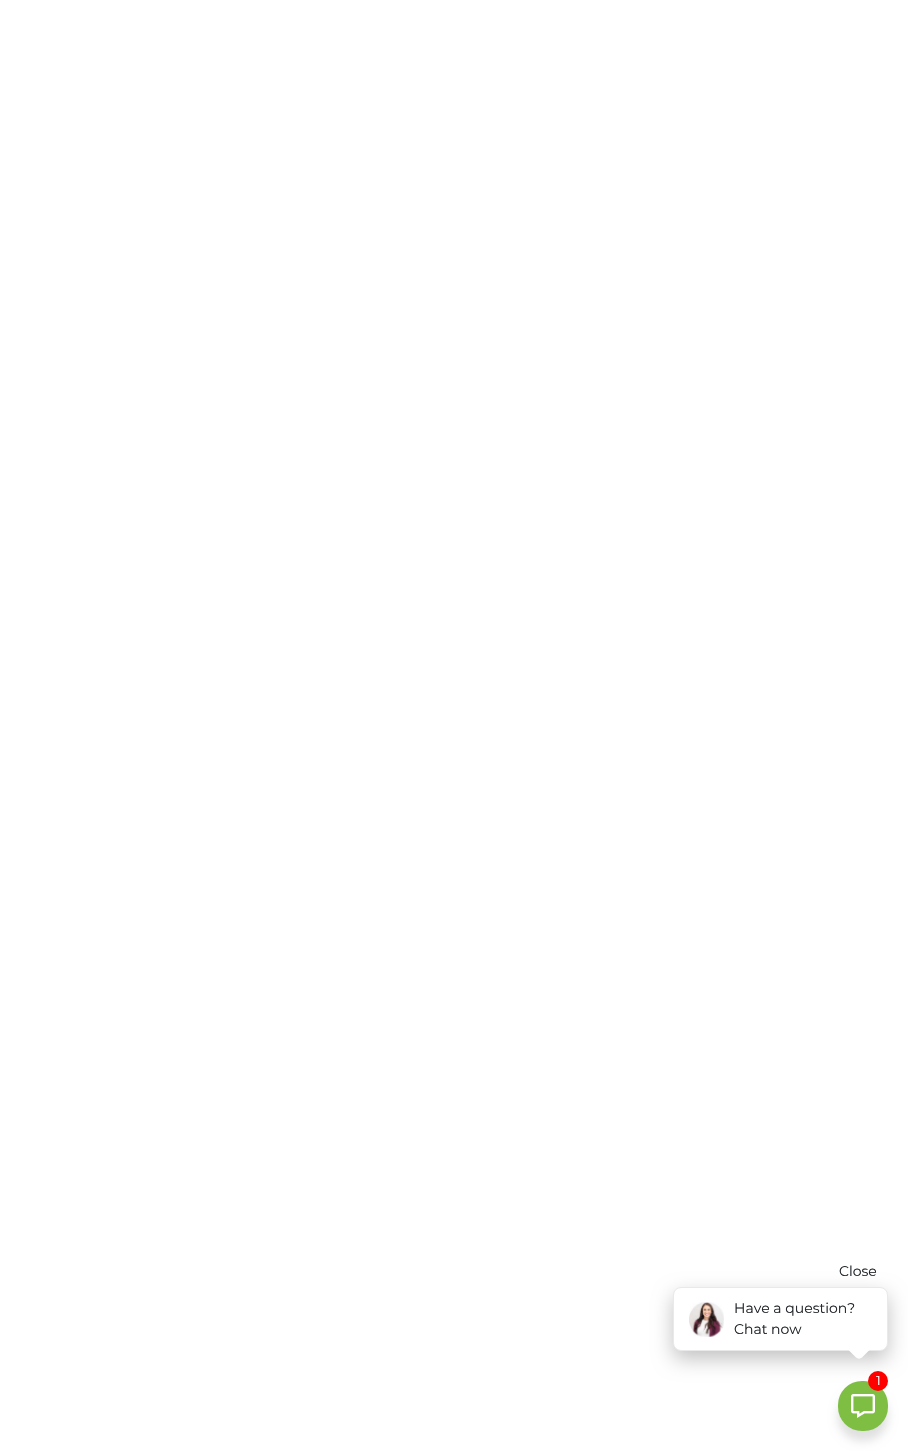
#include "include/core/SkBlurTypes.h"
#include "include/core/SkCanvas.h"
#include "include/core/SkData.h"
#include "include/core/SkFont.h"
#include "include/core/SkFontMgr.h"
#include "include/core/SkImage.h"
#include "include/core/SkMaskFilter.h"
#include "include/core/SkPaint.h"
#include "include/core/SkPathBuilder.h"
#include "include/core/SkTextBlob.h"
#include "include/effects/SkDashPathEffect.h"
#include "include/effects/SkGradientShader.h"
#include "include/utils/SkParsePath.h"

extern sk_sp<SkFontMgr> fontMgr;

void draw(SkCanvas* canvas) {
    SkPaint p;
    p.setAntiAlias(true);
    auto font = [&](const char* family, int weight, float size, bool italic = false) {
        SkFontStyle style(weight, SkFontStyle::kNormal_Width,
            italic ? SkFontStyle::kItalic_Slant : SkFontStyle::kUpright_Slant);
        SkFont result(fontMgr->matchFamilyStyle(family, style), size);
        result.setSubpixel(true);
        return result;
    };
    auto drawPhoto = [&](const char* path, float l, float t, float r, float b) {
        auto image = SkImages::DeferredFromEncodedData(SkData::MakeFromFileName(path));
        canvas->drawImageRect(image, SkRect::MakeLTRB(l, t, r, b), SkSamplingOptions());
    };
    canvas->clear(0xFFFFFFFF);
    p.setColor(0x1F000000);
    p.setMaskFilter(SkMaskFilter::MakeBlur(kNormal_SkBlurStyle, 5));
    canvas->drawRoundRect(SkRect::MakeLTRB(838, 1391, 888, 1441), 24, 24, p);
    p.setMaskFilter(nullptr);
    p.setColor(0xFF7EBE43);
    canvas->drawRoundRect(SkRect::MakeLTRB(838, 1381, 888, 1431), 24, 24, p);
    p.setColor(0x3D000000);
    p.setMaskFilter(SkMaskFilter::MakeBlur(kNormal_SkBlurStyle, 10));
    canvas->drawRoundRect(SkRect::MakeLTRB(673, 1295, 888, 1359), 8, 8, p);
    p.setMaskFilter(nullptr);
    p.setColor(0xFFFFFFFF);
    canvas->drawRoundRect(SkRect::MakeLTRB(673.5f, 1287.5f, 887.5f, 1350.5f), 7.5f, 7.5f, p);
    p.setStyle(SkPaint::kStroke_Style);
    p.setStrokeWidth(1);
    p.setColor(0xFFE8E9EB);
    canvas->drawRoundRect(SkRect::MakeLTRB(673.5f, 1287.5f, 887.5f, 1350.5f), 7.5f, 7.5f, p);
    auto font1 = font("Montserrat", 100, 14);
    p.setStyle(SkPaint::kFill_Style);
    p.setColor(0xFF212529);
    canvas->drawString("Close", 839, 1276, font1, p);
    drawPhoto("media/1.png", 689, 1302, 724, 1337);
    canvas->drawString("Have a question?", 734, 1313, font1, p);
    canvas->drawString("Chat now", 734, 1334, font1, p);
    p.setColor(0xFFFFFFFF);
    canvas->drawPath(SkPathBuilder().moveTo(862, 1334.5f).lineTo(870.5f, 1343).cubicTo(872, 1344.5f, 872, 1347.5f, 870.5f, 1349).lineTo(862, 1357.5f).cubicTo(860.5f, 1359, 857.5f, 1359, 856, 1357.5f).lineTo(847.5f, 1349).cubicTo(846, 1347.5f, 846, 1344.5f, 847.5f, 1343).lineTo(856, 1334.5f).cubicTo(857.5f, 1333, 860.5f, 1333, 862, 1334.5f).close().detach(), p);
    p.setColor(0xFFFF0000);
    canvas->drawCircle(878, 1381, 10, p);
    auto font2 = font("Montserrat", 100, 13);
    p.setColor(0xFFFFFFFF);
    canvas->drawString("1", 876, 1385, font2, p);
    drawPhoto("media/2.png", 851, 1394, 875, 1418);
}
